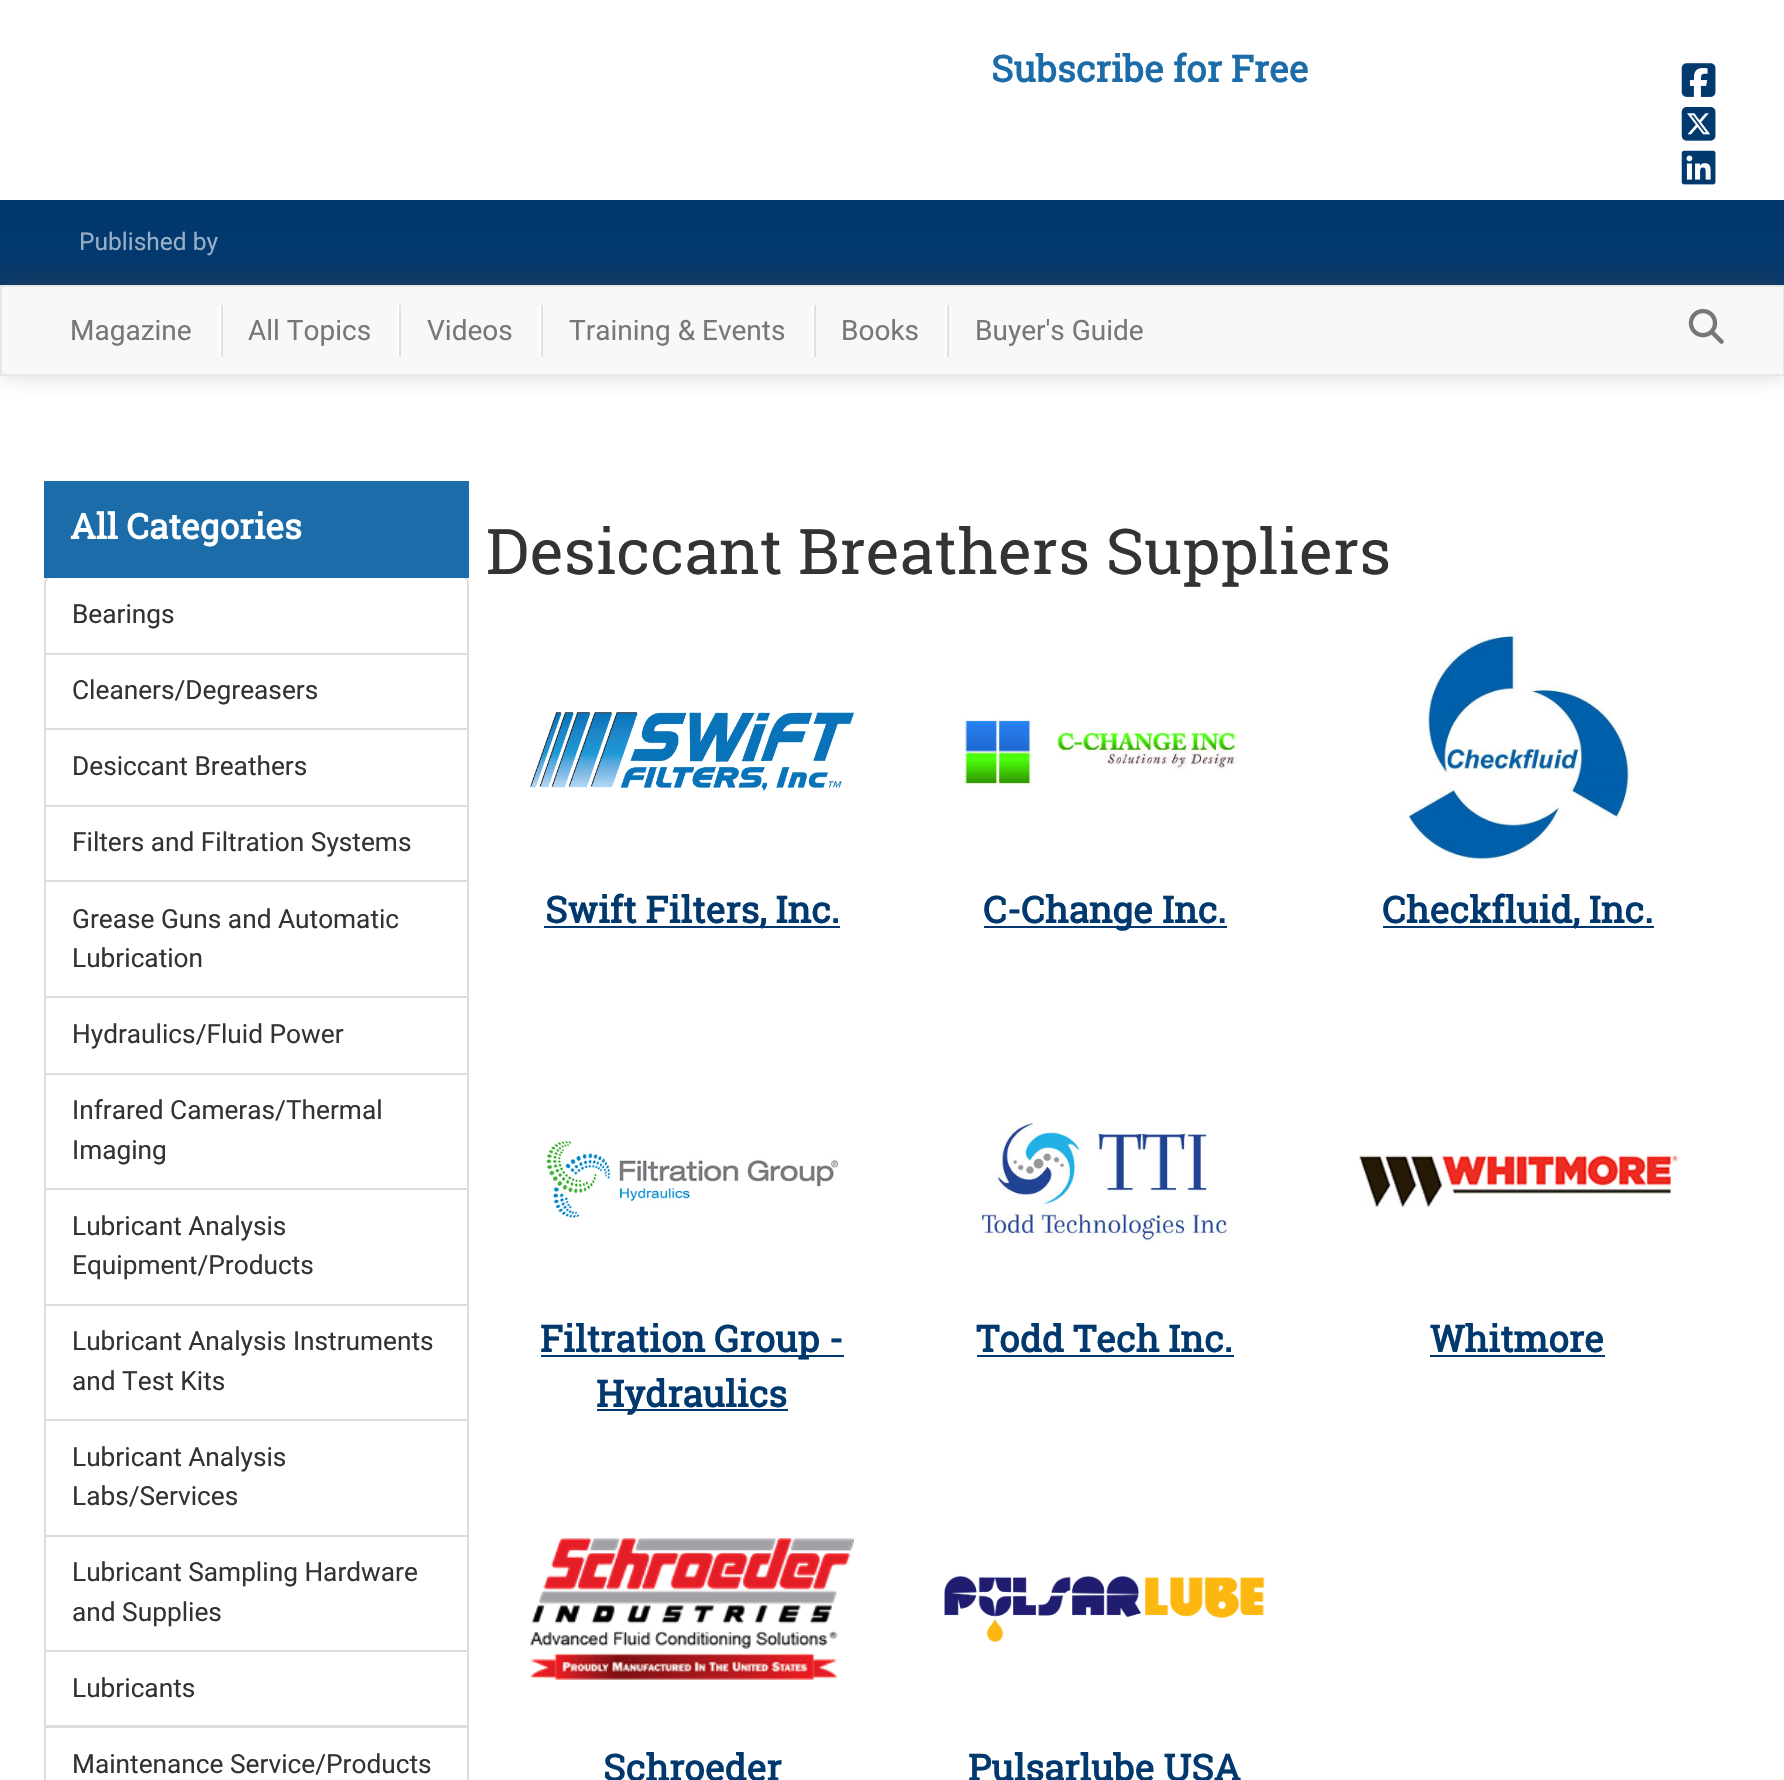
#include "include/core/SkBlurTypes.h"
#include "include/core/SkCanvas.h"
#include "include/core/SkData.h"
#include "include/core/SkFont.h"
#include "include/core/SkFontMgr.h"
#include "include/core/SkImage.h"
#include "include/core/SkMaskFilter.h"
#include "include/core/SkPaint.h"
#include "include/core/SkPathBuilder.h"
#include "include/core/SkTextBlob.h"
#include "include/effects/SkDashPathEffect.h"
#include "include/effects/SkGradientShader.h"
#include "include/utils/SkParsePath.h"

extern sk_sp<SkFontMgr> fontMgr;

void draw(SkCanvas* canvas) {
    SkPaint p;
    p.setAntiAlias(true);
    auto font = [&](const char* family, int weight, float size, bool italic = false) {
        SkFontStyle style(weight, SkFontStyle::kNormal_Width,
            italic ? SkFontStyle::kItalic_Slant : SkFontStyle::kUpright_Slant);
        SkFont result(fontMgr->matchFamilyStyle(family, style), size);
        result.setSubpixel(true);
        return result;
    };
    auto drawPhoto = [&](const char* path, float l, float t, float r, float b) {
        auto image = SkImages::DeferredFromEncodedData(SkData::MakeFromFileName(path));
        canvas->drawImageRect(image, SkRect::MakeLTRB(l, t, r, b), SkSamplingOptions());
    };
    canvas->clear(0xFFFFFFFF);
    auto font1 = font("Roboto Slab", 700, 36.75f);
    p.setColor(0xFF1B6CA8);
    canvas->drawString("Subscribe for Free", 991, 82, font1, p);
    drawPhoto("media/1.png", 1681, 63, 1716, 97);
    drawPhoto("media/2.png", 1681, 107, 1716, 141);
    drawPhoto("media/3.png", 1681, 150, 1716, 185);
    p.setColor(0xFF01386E);
    canvas->drawRect(SkRect::MakeLTRB(0, 200, 1784, 285), p);
    auto font2 = font("Roboto", 400, 24.5f);
    p.setColor(0xFF99AFC5);
    canvas->drawString("Published by", 79, 250, font2, p);
    p.setColor(0x663F4042);
    p.setMaskFilter(SkMaskFilter::MakeBlur(kNormal_SkBlurStyle, 13));
    canvas->drawRect(SkRect::MakeLTRB(0, 277, 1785, 368), p);
    p.setMaskFilter(nullptr);
    p.setColor(0xFFF8F8F8);
    canvas->drawRect(SkRect::MakeLTRB(1, 286, 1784, 375), p);
    p.setStyle(SkPaint::kStroke_Style);
    p.setStrokeWidth(2);
    p.setColor(0xFFE7E7E7);
    canvas->drawRect(SkRect::MakeLTRB(1, 286, 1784, 375), p);
    auto font3 = font("Roboto", 400, 28);
    p.setStyle(SkPaint::kFill_Style);
    p.setColor(0xFF777777);
    canvas->drawString("Magazine", 70, 340, font3, p);
    p.setColor(0xFFE0E0E0);
    canvas->drawRect(SkRect::MakeLTRB(221, 305, 223, 357), p);
    p.setColor(0xFFFFFFFF);
    canvas->drawRect(SkRect::MakeLTRB(219, 305, 221, 357), p);
    p.setColor(0xFF777777);
    canvas->drawString("All Topics", 248, 340, font3, p);
    p.setColor(0xFFE0E0E0);
    canvas->drawRect(SkRect::MakeLTRB(399, 305, 401, 357), p);
    p.setColor(0xFFFFFFFF);
    canvas->drawRect(SkRect::MakeLTRB(397, 305, 399, 357), p);
    p.setColor(0xFF777777);
    canvas->drawString("Videos", 427, 340, font3, p);
    p.setColor(0xFFE0E0E0);
    canvas->drawRect(SkRect::MakeLTRB(541, 305, 543, 357), p);
    p.setColor(0xFFFFFFFF);
    canvas->drawRect(SkRect::MakeLTRB(539, 305, 541, 357), p);
    p.setColor(0xFF777777);
    canvas->drawString("Training & Events", 569, 340, font3, p);
    p.setColor(0xFFE0E0E0);
    canvas->drawRect(SkRect::MakeLTRB(814, 305, 816, 357), p);
    p.setColor(0xFFFFFFFF);
    canvas->drawRect(SkRect::MakeLTRB(812, 305, 814, 357), p);
    p.setColor(0xFF777777);
    canvas->drawString("Books", 841, 340, font3, p);
    p.setColor(0xFFE0E0E0);
    canvas->drawRect(SkRect::MakeLTRB(947, 305, 949, 357), p);
    p.setColor(0xFFFFFFFF);
    canvas->drawRect(SkRect::MakeLTRB(945, 305, 947, 357), p);
    p.setColor(0xFF777777);
    canvas->drawString("Buyer's Guide", 975, 340, font3, p);
    drawPhoto("media/4.png", 1688, 308, 1724, 344);
    p.setStyle(SkPaint::kStroke_Style);
    p.setColor(0xFFDDDDDD);
    canvas->drawPath(SkPathBuilder().moveTo(51, 577).lineTo(462, 577).cubicTo(465.5f, 577, 468, 579.5f, 468, 583).lineTo(468, 654).lineTo(45, 654).lineTo(45, 583).cubicTo(45, 579.5f, 47.5f, 577, 51, 577).close().detach(), p);
    p.setStyle(SkPaint::kFill_Style);
    p.setColor(0xFF1B6CA8);
    canvas->drawRect(SkRect::MakeLTRB(44, 481, 469, 578), p);
    auto font4 = font("Roboto Slab", 700, 35);
    p.setColor(0xFFFFFFFF);
    canvas->drawString("All Categories", 70, 539, font4, p);
    auto font5 = font("Roboto", 400, 26.25f);
    p.setColor(0xFF333333);
    canvas->drawString("Bearings", 72, 623, font5, p);
    p.setStyle(SkPaint::kStroke_Style);
    p.setColor(0xFFDDDDDD);
    canvas->drawRect(SkRect::MakeLTRB(45, 654, 468, 729), p);
    p.setStyle(SkPaint::kFill_Style);
    p.setColor(0xFF333333);
    canvas->drawString("Cleaners/Degreasers", 72, 699, font5, p);
    p.setStyle(SkPaint::kStroke_Style);
    p.setColor(0xFFDDDDDD);
    canvas->drawRect(SkRect::MakeLTRB(45, 729, 468, 806), p);
    p.setStyle(SkPaint::kFill_Style);
    p.setColor(0xFF333333);
    canvas->drawString("Desiccant Breathers", 72, 775, font5, p);
    p.setStyle(SkPaint::kStroke_Style);
    p.setColor(0xFFDDDDDD);
    canvas->drawRect(SkRect::MakeLTRB(45, 806, 468, 881), p);
    p.setStyle(SkPaint::kFill_Style);
    p.setColor(0xFF333333);
    canvas->drawString("Filters and Filtration Systems", 72, 851, font5, p);
    p.setStyle(SkPaint::kStroke_Style);
    p.setColor(0xFFDDDDDD);
    canvas->drawRect(SkRect::MakeLTRB(45, 881, 468, 997), p);
    p.setStyle(SkPaint::kFill_Style);
    p.setColor(0xFF333333);
    canvas->drawString("Grease Guns and Automatic", 72, 928, font5, p);
    canvas->drawString("Lubrication", 72, 967, font5, p);
    p.setStyle(SkPaint::kStroke_Style);
    p.setColor(0xFFDDDDDD);
    canvas->drawRect(SkRect::MakeLTRB(45, 997, 468, 1074), p);
    p.setStyle(SkPaint::kFill_Style);
    p.setColor(0xFF333333);
    canvas->drawString("Hydraulics/Fluid Power", 72, 1043, font5, p);
    p.setStyle(SkPaint::kStroke_Style);
    p.setColor(0xFFDDDDDD);
    canvas->drawRect(SkRect::MakeLTRB(45, 1074, 468, 1189), p);
    p.setStyle(SkPaint::kFill_Style);
    p.setColor(0xFF333333);
    canvas->drawString("Infrared Cameras/Thermal", 72, 1119, font5, p);
    canvas->drawString("Imaging", 72, 1159, font5, p);
    p.setStyle(SkPaint::kStroke_Style);
    p.setColor(0xFFDDDDDD);
    canvas->drawRect(SkRect::MakeLTRB(45, 1189, 468, 1305), p);
    p.setStyle(SkPaint::kFill_Style);
    p.setColor(0xFF333333);
    canvas->drawString("Lubricant Analysis", 72, 1235, font5, p);
    canvas->drawString("Equipment/Products", 72, 1274, font5, p);
    p.setStyle(SkPaint::kStroke_Style);
    p.setColor(0xFFDDDDDD);
    canvas->drawRect(SkRect::MakeLTRB(45, 1305, 468, 1420), p);
    p.setStyle(SkPaint::kFill_Style);
    p.setColor(0xFF333333);
    canvas->drawString("Lubricant Analysis Instruments", 72, 1350, font5, p);
    canvas->drawString("and Test Kits", 72, 1390, font5, p);
    p.setStyle(SkPaint::kStroke_Style);
    p.setColor(0xFFDDDDDD);
    canvas->drawRect(SkRect::MakeLTRB(45, 1420, 468, 1536), p);
    p.setStyle(SkPaint::kFill_Style);
    p.setColor(0xFF333333);
    canvas->drawString("Lubricant Analysis", 72, 1466, font5, p);
    canvas->drawString("Labs/Services", 72, 1505, font5, p);
    p.setStyle(SkPaint::kStroke_Style);
    p.setColor(0xFFDDDDDD);
    canvas->drawRect(SkRect::MakeLTRB(45, 1536, 468, 1651), p);
    p.setStyle(SkPaint::kFill_Style);
    p.setColor(0xFF333333);
    canvas->drawString("Lubricant Sampling Hardware", 72, 1581, font5, p);
    canvas->drawString("and Supplies", 72, 1621, font5, p);
    p.setStyle(SkPaint::kStroke_Style);
    p.setColor(0xFFDDDDDD);
    canvas->drawRect(SkRect::MakeLTRB(45, 1651, 468, 1726), p);
    p.setStyle(SkPaint::kFill_Style);
    p.setColor(0xFF333333);
    canvas->drawString("Lubricants", 72, 1697, font5, p);
    p.setStyle(SkPaint::kStroke_Style);
    p.setColor(0xFFDDDDDD);
    canvas->drawRect(SkRect::MakeLTRB(45, 1727, 468, 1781), p);
    p.setStyle(SkPaint::kFill_Style);
    p.setColor(0xFF333333);
    canvas->drawString("Maintenance Service/Products", 72, 1773, font5, p);
    auto font6 = font("Roboto Slab", 400, 63);
    canvas->drawString("Desiccant Breathers Suppliers", 486, 574, font6, p);
    drawPhoto("media/5.png", 530, 712, 854, 791);
    p.setColor(0xFF01386E);
    canvas->drawRect(SkRect::MakeLTRB(544, 926, 840, 928), p);
    canvas->drawString("Swift Filters, Inc.", 545, 923, font1, p);
    drawPhoto("media/6.png", 964, 719, 1239, 786);
    canvas->drawRect(SkRect::MakeLTRB(984, 926, 1227, 928), p);
    canvas->drawString("C-Change Inc.", 983, 923, font1, p);
    drawPhoto("media/7.png", 1407, 630, 1630, 860);
    canvas->drawRect(SkRect::MakeLTRB(1383, 926, 1654, 928), p);
    canvas->drawString("Checkfluid, Inc.", 1382, 923, font1, p);
    drawPhoto("media/8.png", 546, 1140, 839, 1218);
    canvas->drawRect(SkRect::MakeLTRB(541, 1355, 844, 1357), p);
    canvas->drawString("Filtration Group -", 540, 1352, font1, p);
    canvas->drawRect(SkRect::MakeLTRB(597, 1409, 788, 1411), p);
    canvas->drawString("Hydraulics", 596, 1407, font1, p);
    drawPhoto("media/9.png", 980, 1121, 1228, 1243);
    canvas->drawString("Todd Tech Inc.", 976, 1352, font1, p);
    canvas->drawRect(SkRect::MakeLTRB(977, 1355, 1234, 1357), p);
    drawPhoto("media/10.png", 1356, 1155, 1679, 1208);
    canvas->drawString("Whitmore", 1430, 1352, font1, p);
    canvas->drawRect(SkRect::MakeLTRB(1430, 1355, 1605, 1357), p);
    drawPhoto("media/11.png", 530, 1538, 854, 1680);
    canvas->drawString("Schroeder", 603, 1781, font1, p);
    drawPhoto("media/12.png", 944, 1575, 1265, 1643);
    canvas->drawString("Pulsarlube USA", 968, 1781, font1, p);
}
